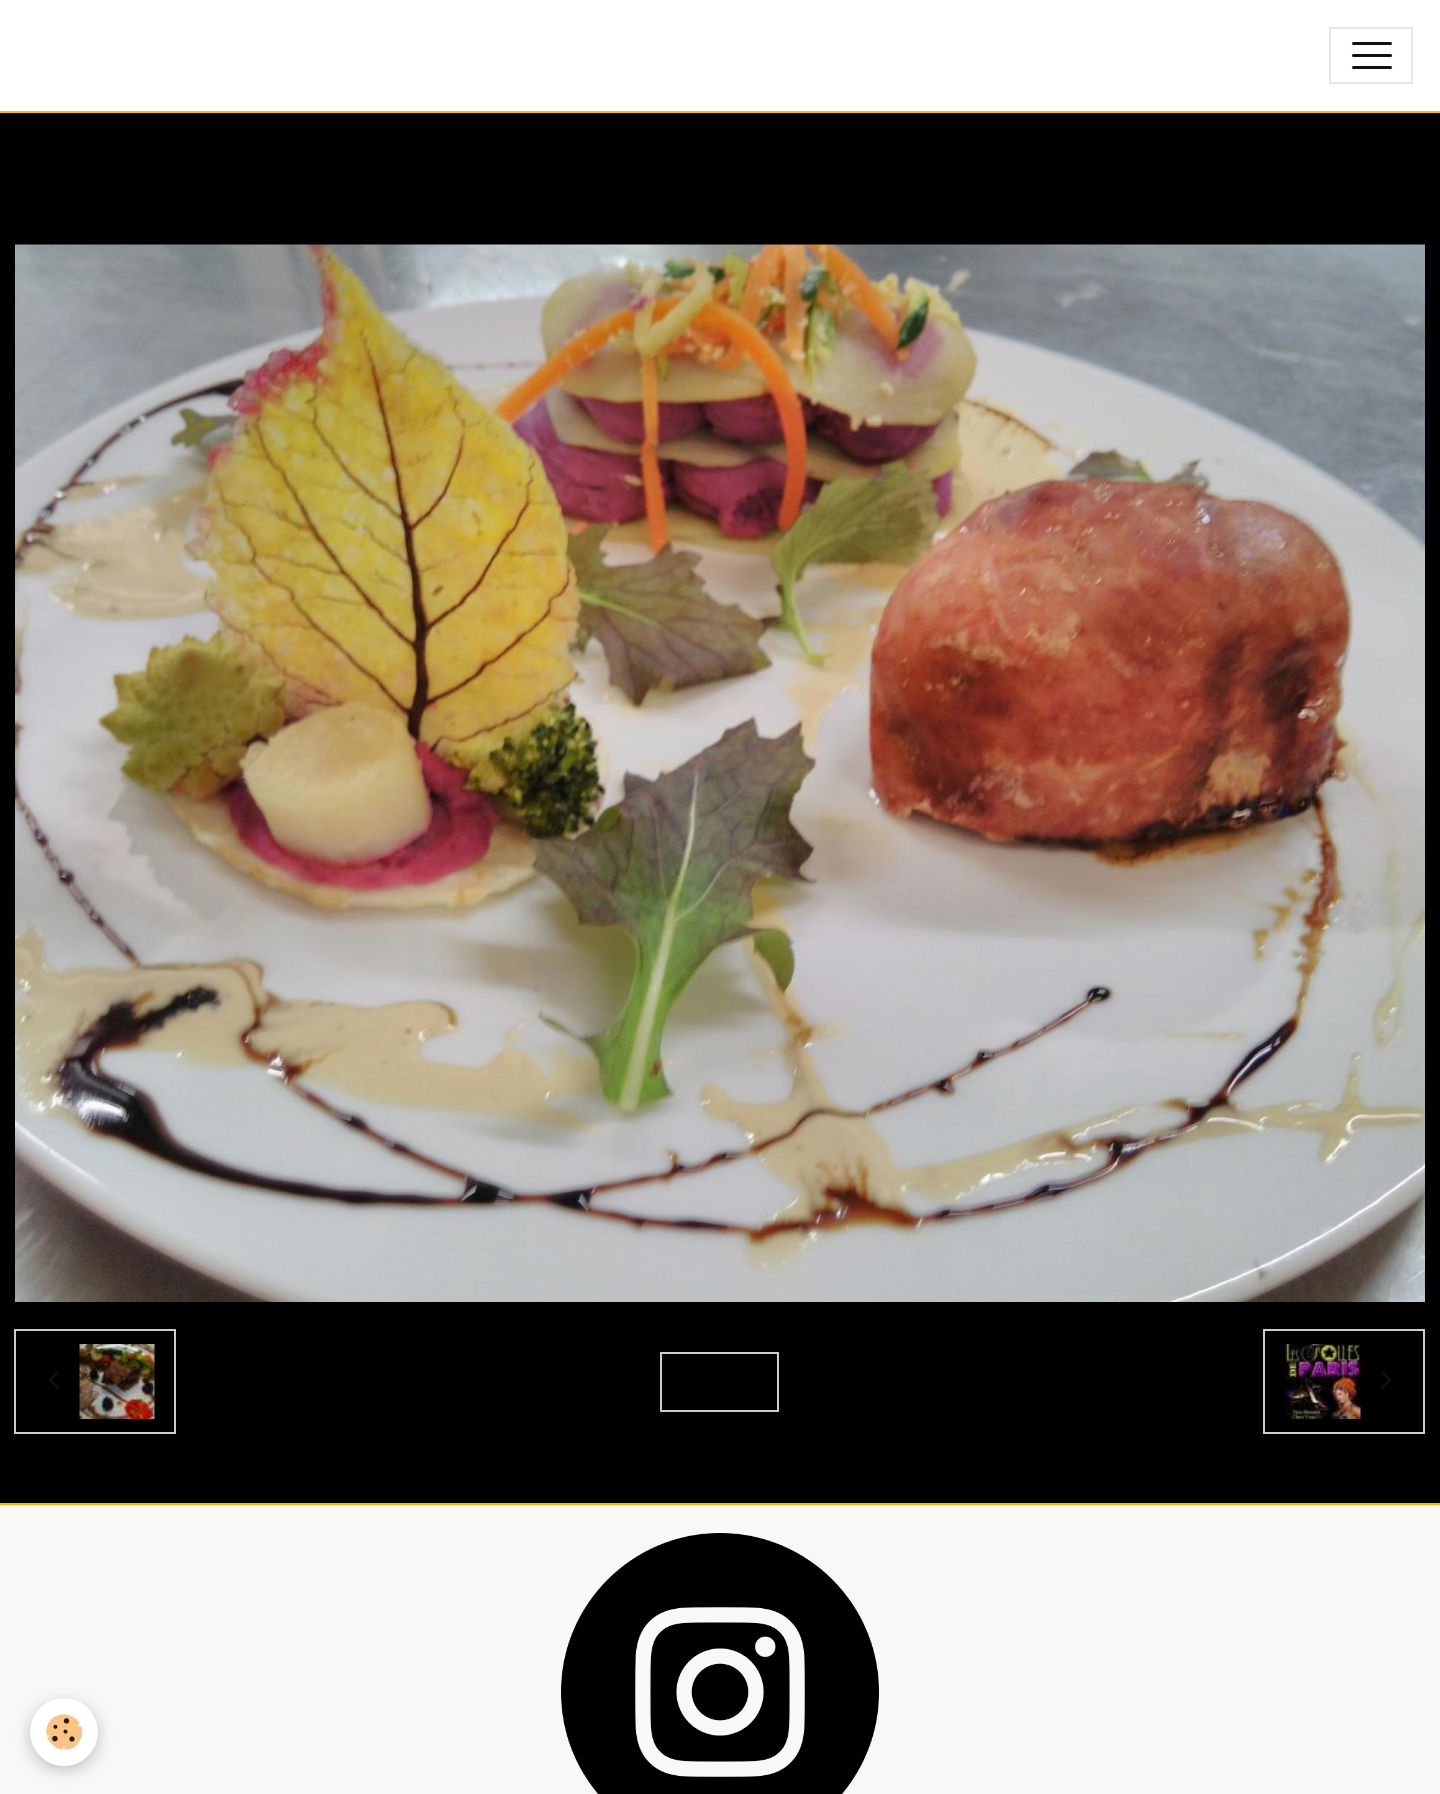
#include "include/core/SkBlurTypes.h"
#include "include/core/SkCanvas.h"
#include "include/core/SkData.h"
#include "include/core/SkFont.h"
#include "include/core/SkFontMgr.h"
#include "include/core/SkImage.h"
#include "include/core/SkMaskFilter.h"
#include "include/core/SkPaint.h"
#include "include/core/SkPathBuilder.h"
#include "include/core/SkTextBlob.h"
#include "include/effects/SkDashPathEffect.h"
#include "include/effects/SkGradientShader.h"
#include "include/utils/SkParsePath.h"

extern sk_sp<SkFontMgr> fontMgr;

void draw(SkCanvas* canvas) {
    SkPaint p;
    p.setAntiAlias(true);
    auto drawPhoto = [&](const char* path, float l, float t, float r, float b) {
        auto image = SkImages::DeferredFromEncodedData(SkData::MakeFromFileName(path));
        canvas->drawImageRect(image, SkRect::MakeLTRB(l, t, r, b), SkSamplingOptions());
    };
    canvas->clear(0xFF000000);
    p.setColor(0xFFFFFFFF);
    canvas->drawRect(SkRect::MakeLTRB(0, 0, 1440, 111), p);
    p.setColor(0xFFFBBD00);
    canvas->drawRect(SkRect::MakeLTRB(0, 111, 1440, 113), p);
    p.setStyle(SkPaint::kStroke_Style);
    p.setStrokeWidth(2);
    p.setColor(0xFFE7E7E7);
    canvas->drawRect(SkRect::MakeLTRB(1330, 28, 1412, 83), p);
    p.setStyle(SkPaint::kFill_Style);
    p.setColor(0xFF101010);
    canvas->drawRoundRect(SkRect::MakeLTRB(1352, 42, 1392, 45), 1.5f, 1.5f, p);
    canvas->drawRoundRect(SkRect::MakeLTRB(1352, 54, 1392, 57), 1.5f, 1.5f, p);
    canvas->drawRoundRect(SkRect::MakeLTRB(1352, 66, 1392, 69), 1.5f, 1.5f, p);
    drawPhoto("media/1.png", 15, 244, 1425, 1302);
    p.setStyle(SkPaint::kStroke_Style);
    p.setColor(0xFFCCCCCC);
    canvas->drawRect(SkRect::MakeLTRB(15, 1330, 175, 1433), p);
    p.setStyle(SkPaint::kFill_Style);
    p.setColor(0xFF101010);
    canvas->drawPath(SkPathBuilder().moveTo(59, 1373).lineTo(52, 1380).lineTo(59, 1387).lineTo(57, 1389).lineTo(48, 1380).lineTo(57, 1371).close().detach(), p);
    drawPhoto("media/2.png", 79, 1344, 155, 1419);
    p.setStyle(SkPaint::kStroke_Style);
    p.setColor(0xFFCCCCCC);
    canvas->drawRect(SkRect::MakeLTRB(661, 1353, 778, 1411), p);
    canvas->drawRect(SkRect::MakeLTRB(1264, 1330, 1424, 1433), p);
    drawPhoto("media/3.png", 1285, 1344, 1361, 1419);
    p.setStyle(SkPaint::kFill_Style);
    p.setColor(0xFF101010);
    canvas->drawPath(SkPathBuilder().moveTo(1383, 1371).lineTo(1392, 1380).lineTo(1383, 1389).lineTo(1381, 1387).lineTo(1388, 1380).lineTo(1381, 1373).close().detach(), p);
    p.setColor(0xFFF8F8F8);
    canvas->drawRect(SkRect::MakeLTRB(0, 1505, 1440, 1794), p);
    p.setColor(0xFFF3B700);
    canvas->drawRect(SkRect::MakeLTRB(0, 1503, 1440, 1505), p);
    drawPhoto("media/4.png", 561, 1533, 879, 1794);
    p.setColor(0x3D000000);
    p.setMaskFilter(SkMaskFilter::MakeBlur(kNormal_SkBlurStyle, 7.5f));
    canvas->drawRoundRect(SkRect::MakeLTRB(30, 1703, 98, 1770), 33.5f, 33.5f, p);
    p.setMaskFilter(nullptr);
    p.setColor(0xFFFFFFFF);
    canvas->drawCircle(64, 1732, 34, p);
    drawPhoto("media/5.png", 46, 1714, 83, 1750);
}
